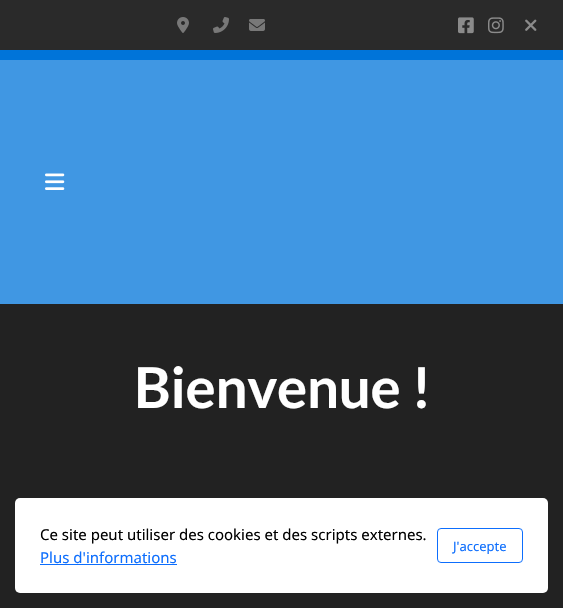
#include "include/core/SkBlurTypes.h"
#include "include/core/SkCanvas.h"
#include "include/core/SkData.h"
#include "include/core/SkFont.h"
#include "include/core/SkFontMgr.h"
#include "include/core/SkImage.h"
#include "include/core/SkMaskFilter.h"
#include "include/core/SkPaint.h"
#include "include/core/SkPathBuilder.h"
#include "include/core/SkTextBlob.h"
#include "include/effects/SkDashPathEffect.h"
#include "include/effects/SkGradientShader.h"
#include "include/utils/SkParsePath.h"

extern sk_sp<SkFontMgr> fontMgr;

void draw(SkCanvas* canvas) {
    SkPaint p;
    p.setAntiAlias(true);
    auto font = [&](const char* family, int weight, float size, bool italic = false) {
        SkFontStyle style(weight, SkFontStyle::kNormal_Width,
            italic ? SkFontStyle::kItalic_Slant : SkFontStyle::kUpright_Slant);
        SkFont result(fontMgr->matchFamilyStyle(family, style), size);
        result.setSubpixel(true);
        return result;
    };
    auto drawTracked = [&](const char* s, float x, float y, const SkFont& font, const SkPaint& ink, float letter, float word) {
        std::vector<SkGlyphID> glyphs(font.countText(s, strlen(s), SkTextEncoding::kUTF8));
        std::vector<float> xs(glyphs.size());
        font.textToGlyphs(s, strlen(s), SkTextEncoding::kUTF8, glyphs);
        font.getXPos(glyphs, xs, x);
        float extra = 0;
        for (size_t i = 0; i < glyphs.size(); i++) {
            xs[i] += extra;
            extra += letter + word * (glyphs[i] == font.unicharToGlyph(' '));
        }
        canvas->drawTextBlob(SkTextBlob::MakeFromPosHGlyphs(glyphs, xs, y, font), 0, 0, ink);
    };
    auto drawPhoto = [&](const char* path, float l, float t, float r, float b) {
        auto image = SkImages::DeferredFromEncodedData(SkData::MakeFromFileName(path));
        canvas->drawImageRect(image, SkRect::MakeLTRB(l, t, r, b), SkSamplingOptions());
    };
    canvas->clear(0xFF222222);
    p.setColor(0xFF2A2A2A);
    canvas->drawRect(SkRect::MakeLTRB(0, 0, 563, 50), p);
    drawPhoto("media/1.png", 177, 17, 189, 33);
    drawPhoto("media/2.png", 213, 17, 229, 33);
    drawPhoto("media/3.png", 249, 19, 265, 31);
    drawPhoto("media/4.png", 458, 17, 474, 34);
    drawPhoto("media/5.png", 488, 17, 504, 34);
    drawPhoto("media/6.png", 525, 19, 537, 31);
    p.setColor(0xFF4097E3);
    canvas->drawRect(SkRect::MakeLTRB(0, 60, 563, 304), p);
    p.setColor(0xFF0074D9);
    canvas->drawRect(SkRect::MakeLTRB(0, 50, 563, 60), p);
    drawPhoto("media/7.png", 45, 173, 65, 190);
    auto font1 = font("Lato", 700, 56.5f);
    p.setColor(0xFFFFFFFF);
    drawTracked("Bienvenue !", 134, 408, font1, p, -0.3f, 0);
    canvas->drawRoundRect(SkRect::MakeLTRB(15, 498, 548, 593), 5, 5, p);
    auto font2 = font("Noto Sans", 400, 15);
    p.setColor(0xFF000000);
    canvas->drawString("Ce site peut utiliser des cookies et des scripts externes.", 40, 540, font2, p);
    p.setColor(0xFF0D6EFD);
    canvas->drawString("Plus d'informations", 40, 563, font2, p);
    canvas->drawRect(SkRect::MakeLTRB(40, 564, 177, 565), p);
    p.setStyle(SkPaint::kStroke_Style);
    p.setStrokeWidth(1);
    canvas->drawRoundRect(SkRect::MakeLTRB(437.5f, 528.5f, 522.5f, 562.5f), 3.5f, 3.5f, p);
    auto font3 = font("Noto Sans", 400, 13);
    p.setStyle(SkPaint::kFill_Style);
    canvas->drawString("J'accepte", 453, 551, font3, p);
}
